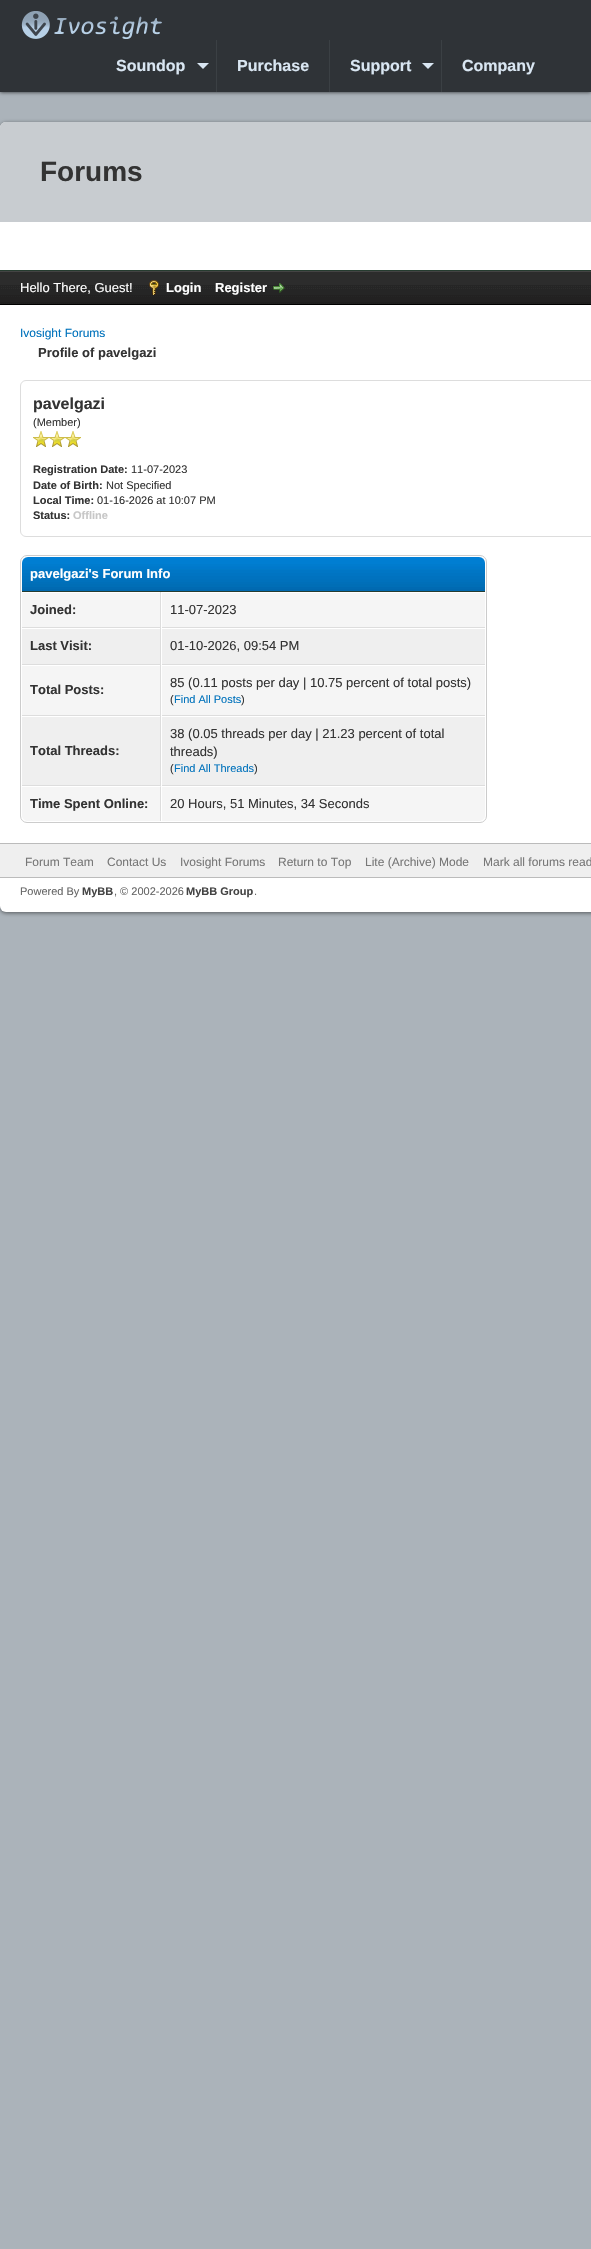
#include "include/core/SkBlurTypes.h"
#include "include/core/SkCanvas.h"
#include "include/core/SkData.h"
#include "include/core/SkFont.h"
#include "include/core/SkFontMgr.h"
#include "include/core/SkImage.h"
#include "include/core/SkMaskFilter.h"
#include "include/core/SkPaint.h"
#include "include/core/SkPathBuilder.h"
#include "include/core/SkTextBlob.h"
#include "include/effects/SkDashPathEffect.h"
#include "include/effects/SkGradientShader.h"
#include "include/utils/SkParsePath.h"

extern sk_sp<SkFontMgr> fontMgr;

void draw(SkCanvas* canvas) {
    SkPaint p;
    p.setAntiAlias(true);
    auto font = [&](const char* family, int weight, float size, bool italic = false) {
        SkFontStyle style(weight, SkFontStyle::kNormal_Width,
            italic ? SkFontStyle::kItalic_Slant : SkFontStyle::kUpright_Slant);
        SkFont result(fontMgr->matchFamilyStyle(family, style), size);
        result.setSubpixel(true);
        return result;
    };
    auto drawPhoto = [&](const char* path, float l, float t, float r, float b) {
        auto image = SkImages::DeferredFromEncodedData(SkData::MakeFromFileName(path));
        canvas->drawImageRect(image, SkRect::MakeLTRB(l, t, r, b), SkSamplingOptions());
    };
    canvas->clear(0xFFABB3BA);
    p.setColor(0xFF242629);
    p.setMaskFilter(SkMaskFilter::MakeBlur(kNormal_SkBlurStyle, 2));
    canvas->drawRect(SkRect::MakeLTRB(0, 0, 591, 92), p);
    p.setMaskFilter(nullptr);
    p.setColor(0xFF2F3337);
    canvas->drawRect(SkRect::MakeLTRB(0, 0, 591, 92), p);
    drawPhoto("media/1.png", 21, 11, 162, 39);
    auto font1 = font("Liberation Sans", 700, 16);
    p.setColor(0xFFD9E6F2);
    canvas->drawString("Soundop", 116, 71, font1, p);
    canvas->drawPath(SkPathBuilder().moveTo(197, 63).lineTo(209, 63).lineTo(203, 69).close().detach(), p);
    p.setColor(0xFF3B4044);
    canvas->drawRect(SkRect::MakeLTRB(216, 40, 217, 92), p);
    p.setColor(0xFFD9E6F2);
    canvas->drawString("Purchase", 237, 71, font1, p);
    p.setColor(0xFF3B4044);
    canvas->drawRect(SkRect::MakeLTRB(329, 40, 330, 92), p);
    p.setColor(0xFFD9E6F2);
    canvas->drawString("Support", 350, 71, font1, p);
    canvas->drawPath(SkPathBuilder().moveTo(422, 63).lineTo(434, 63).lineTo(428, 69).close().detach(), p);
    p.setColor(0xFF3B4044);
    canvas->drawRect(SkRect::MakeLTRB(441, 40, 442, 92), p);
    p.setColor(0xFFD9E6F2);
    canvas->drawString("Company", 462, 71, font1, p);
    p.setColor(0x80000000);
    p.setMaskFilter(SkMaskFilter::MakeBlur(kNormal_SkBlurStyle, 2));
    canvas->drawRoundRect(SkRect::MakeLTRB(0, 123, 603, 913), 6, 6, p);
    p.setMaskFilter(nullptr);
    p.setColor(0xFFFFFFFF);
    canvas->drawRoundRect(SkRect::MakeLTRB(0, 122, 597, 912), 6, 6, p);
    p.setColor(0xFFC8CCD0);
    canvas->drawPath(SkPathBuilder().moveTo(6, 122).lineTo(591, 122).cubicTo(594.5f, 122, 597, 124.5f, 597, 128).lineTo(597, 222).lineTo(0, 222).lineTo(0, 128).cubicTo(0, 124.5f, 2.5f, 122, 6, 122).close().detach(), p);
    auto font2 = font("Liberation Sans", 700, 28);
    p.setColor(0xFF333333);
    canvas->drawString("Forums", 40, 181, font2, p);
    p.setColor(0xFF263C30);
    canvas->drawRect(SkRect::MakeLTRB(0, 270, 591, 271), p);
    drawPhoto("media/2.png", 0, 272, 591, 304);
    p.setColor(0xFF444444);
    canvas->drawRect(SkRect::MakeLTRB(0, 271, 591, 272), p);
    p.setColor(0xFF000000);
    canvas->drawRect(SkRect::MakeLTRB(0, 304, 591, 305), p);
    auto font3 = font("Liberation Sans", 400, 13);
    p.setColor(0xFFFFFFFF);
    canvas->drawString("Hello There, Guest!", 20, 292, font3, p);
    drawPhoto("media/3.png", 149, 280, 159, 295);
    auto font4 = font("Liberation Sans", 700, 13);
    canvas->drawString("Login", 166, 292, font4, p);
    canvas->drawString("Register", 215, 292, font4, p);
    drawPhoto("media/4.png", 273, 283, 285, 293);
    auto font5 = font("Liberation Sans", 400, 12);
    p.setColor(0xFF0072BC);
    canvas->drawString("Ivosight Forums", 20, 337, font5, p);
    p.setColor(0xFF333333);
    canvas->drawString("Profile of pavelgazi", 38, 357, font4, p);
    p.setStyle(SkPaint::kStroke_Style);
    p.setStrokeWidth(1);
    p.setColor(0xFFDDDDDD);
    canvas->drawRoundRect(SkRect::MakeLTRB(20.5f, 380.5f, 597.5f, 536.5f), 5.5f, 5.5f, p);
    p.setStyle(SkPaint::kFill_Style);
    p.setColor(0xFF333333);
    canvas->drawString("pavelgazi", 33, 409, font1, p);
    auto font6 = font("Liberation Sans", 400, 11);
    canvas->drawString("(Member)", 33, 426, font6, p);
    drawPhoto("media/5.png", 33, 431, 49, 447);
    drawPhoto("media/5.png", 49, 431, 65, 447);
    drawPhoto("media/5.png", 65, 431, 81, 447);
    auto font7 = font("Liberation Sans", 700, 11);
    canvas->drawString("Registration Date:", 33, 473, font7, p);
    canvas->drawString("11-07-2023", 131, 473, font6, p);
    canvas->drawString("Date of Birth:", 33, 489, font7, p);
    canvas->drawString("Not Specified", 106, 489, font6, p);
    canvas->drawString("Local Time:", 33, 504, font7, p);
    canvas->drawString("01-16-2026 at 10:07 PM", 97, 504, font6, p);
    canvas->drawString("Status:", 33, 519, font7, p);
    p.setColor(0xFFC7C7C7);
    canvas->drawString("Offline", 73, 519, font7, p);
    p.setStyle(SkPaint::kStroke_Style);
    p.setColor(0xFFCCCCCC);
    canvas->drawRoundRect(SkRect::MakeLTRB(20.5f, 555.5f, 486.5f, 822.5f), 6.5f, 6.5f, p);
    drawPhoto("media/6.png", 22, 557, 485, 591);
    p.setStyle(SkPaint::kFill_Style);
    p.setColor(0xFF263C30);
    canvas->drawRect(SkRect::MakeLTRB(22, 591, 485, 592), p);
    p.setColor(0xFFFFFFFF);
    canvas->drawString("pavelgazi's Forum Info", 30, 578, font4, p);
    {
        const struct { float l, t, r, b; SkColor color; } items[] = {
            {22, 593, 160, 627, 0xFFF5F5F5},
            {160, 592, 161, 786, 0xFFDDDDDD},
            {22, 627, 485, 628, 0xFFDDDDDD},
        };
        for (auto [l, t, r, b, color] : items) {
            p.setColor(color);
            canvas->drawRect(SkRect::MakeLTRB(l, t, r, b), p);
        }
    }
    p.setColor(0xFF333333);
    canvas->drawString("Joined:", 30, 614, font4, p);
    p.setColor(0xFFF5F5F5);
    canvas->drawRect(SkRect::MakeLTRB(162, 593, 485, 627), p);
    p.setColor(0xFFFFFFFF);
    canvas->drawRect(SkRect::MakeLTRB(161, 627, 162, 628), p);
    p.setColor(0xFF333333);
    canvas->drawString("11-07-2023", 170, 614, font3, p);
    p.setColor(0xFFEFEFEF);
    canvas->drawRect(SkRect::MakeLTRB(22, 629, 160, 664), p);
    p.setColor(0xFFDDDDDD);
    canvas->drawRect(SkRect::MakeLTRB(22, 664, 485, 665), p);
    p.setColor(0xFF333333);
    canvas->drawString("Last Visit:", 30, 650, font4, p);
    p.setColor(0xFFEFEFEF);
    canvas->drawRect(SkRect::MakeLTRB(162, 629, 485, 664), p);
    p.setColor(0xFFFFFFFF);
    canvas->drawRect(SkRect::MakeLTRB(161, 664, 162, 665), p);
    p.setColor(0xFF333333);
    canvas->drawString("01-10-2026, 09:54 PM", 170, 650, font3, p);
    p.setColor(0xFFF5F5F5);
    canvas->drawRect(SkRect::MakeLTRB(22, 666, 160, 715), p);
    p.setColor(0xFFDDDDDD);
    canvas->drawRect(SkRect::MakeLTRB(22, 715, 485, 716), p);
    p.setColor(0xFF333333);
    canvas->drawString("Total Posts:", 30, 694, font4, p);
    p.setColor(0xFFF5F5F5);
    canvas->drawRect(SkRect::MakeLTRB(162, 666, 485, 715), p);
    p.setColor(0xFFFFFFFF);
    canvas->drawRect(SkRect::MakeLTRB(161, 715, 162, 716), p);
    p.setColor(0xFF333333);
    canvas->drawString("85 (0.11 posts per day | 10.75 percent of total posts)", 170, 687, font3, p);
    canvas->drawString("(", 170, 703, font6, p);
    p.setColor(0xFF0072BC);
    canvas->drawString("Find All Posts", 174, 703, font6, p);
    p.setColor(0xFF333333);
    canvas->drawString(")", 241, 703, font6, p);
    p.setColor(0xFFEFEFEF);
    canvas->drawRect(SkRect::MakeLTRB(22, 717, 160, 785), p);
    p.setColor(0xFFDDDDDD);
    canvas->drawRect(SkRect::MakeLTRB(22, 785, 485, 786), p);
    p.setColor(0xFF333333);
    canvas->drawString("Total Threads:", 30, 755, font4, p);
    p.setColor(0xFFEFEFEF);
    canvas->drawRect(SkRect::MakeLTRB(162, 717, 485, 785), p);
    p.setColor(0xFFFFFFFF);
    canvas->drawRect(SkRect::MakeLTRB(161, 785, 162, 786), p);
    p.setColor(0xFF333333);
    canvas->drawString("38 (0.05 threads per day | 21.23 percent of total", 170, 738, font3, p);
    canvas->drawString("threads)", 170, 756, font3, p);
    canvas->drawString("(", 170, 772, font6, p);
    p.setColor(0xFF0072BC);
    canvas->drawString("Find All Threads", 174, 772, font6, p);
    p.setColor(0xFF333333);
    canvas->drawString(")", 254, 772, font6, p);
    p.setColor(0xFFF5F5F5);
    canvas->drawPath(SkPathBuilder().moveTo(22, 786).lineTo(161, 786).lineTo(161, 821).lineTo(28, 821).cubicTo(24.5f, 821, 22, 818.5f, 22, 815).close().detach(), p);
    p.setColor(0xFFFFFFFF);
    canvas->drawPath(SkPathBuilder().moveTo(22, 786).lineTo(161, 786).lineTo(160, 787).lineTo(22, 787).close().detach(), p);
    p.setColor(0xFFDDDDDD);
    canvas->drawPath(SkPathBuilder().moveTo(161, 786).lineTo(160, 787).lineTo(160, 821).lineTo(161, 821).close().detach(), p);
    p.setColor(0xFF333333);
    canvas->drawString("Time Spent Online:", 30, 808, font4, p);
    p.setColor(0xFFF5F5F5);
    canvas->drawPath(SkPathBuilder().moveTo(161, 786).lineTo(485, 786).lineTo(485, 815).cubicTo(485, 818.5f, 482.5f, 821, 479, 821).lineTo(161, 821).close().detach(), p);
    p.setColor(0xFFFFFFFF);
    canvas->drawRect(SkRect::MakeLTRB(161, 786, 485, 787), p);
    canvas->drawRect(SkRect::MakeLTRB(161, 786, 162, 821), p);
    p.setColor(0xFF333333);
    canvas->drawString("20 Hours, 51 Minutes, 34 Seconds", 170, 808, font3, p);
    {
        const struct { float l, t, r, b; SkColor color; } items[] = {
            {0, 844, 591, 877, 0xFFEFEFEF},
            {0, 843, 591, 844, 0xFFBBBBBB},
            {0, 877, 591, 878, 0xFFBBBBBB},
        };
        for (auto [l, t, r, b, color] : items) {
            p.setColor(color);
            canvas->drawRect(SkRect::MakeLTRB(l, t, r, b), p);
        }
    }
    p.setColor(0xFF777777);
    {
        const struct { const char* s; float x, y; } items[] = {
            {"Forum Team", 25, 866},
            {"Contact Us", 107, 866},
            {"Ivosight Forums", 180, 866},
            {"Return to Top", 278, 866},
            {"Lite (Archive) Mode", 365, 866},
            {"Mark all forums read", 483, 866},
        };
        for (auto [s, x, y] : items) {
            canvas->drawString(s, x, y, font5, p);
        }
    }
    p.setColor(0xFF666666);
    canvas->drawString("Powered By", 20, 895, font6, p);
    p.setColor(0xFF444444);
    canvas->drawString("MyBB", 82, 895, font7, p);
    p.setColor(0xFF666666);
    canvas->drawString(", © 2002-2026", 114, 895, font6, p);
    p.setColor(0xFF444444);
    canvas->drawString("MyBB Group", 186, 895, font7, p);
    p.setColor(0xFF666666);
    canvas->drawString(".", 254, 895, font6, p);
}
